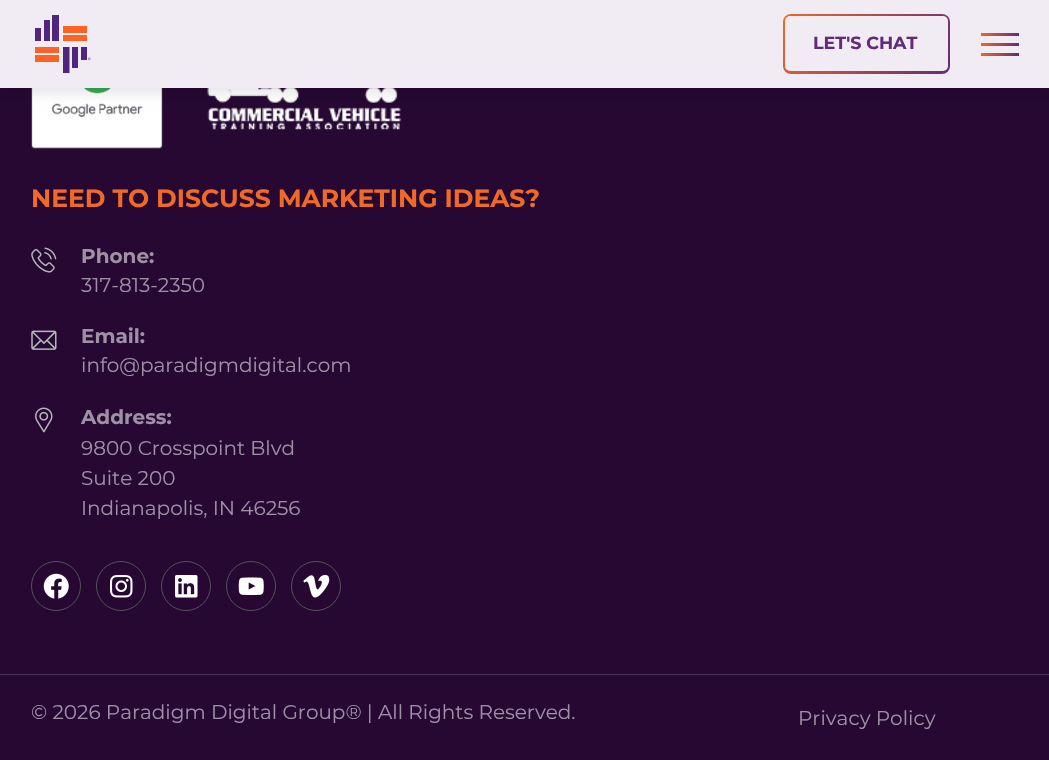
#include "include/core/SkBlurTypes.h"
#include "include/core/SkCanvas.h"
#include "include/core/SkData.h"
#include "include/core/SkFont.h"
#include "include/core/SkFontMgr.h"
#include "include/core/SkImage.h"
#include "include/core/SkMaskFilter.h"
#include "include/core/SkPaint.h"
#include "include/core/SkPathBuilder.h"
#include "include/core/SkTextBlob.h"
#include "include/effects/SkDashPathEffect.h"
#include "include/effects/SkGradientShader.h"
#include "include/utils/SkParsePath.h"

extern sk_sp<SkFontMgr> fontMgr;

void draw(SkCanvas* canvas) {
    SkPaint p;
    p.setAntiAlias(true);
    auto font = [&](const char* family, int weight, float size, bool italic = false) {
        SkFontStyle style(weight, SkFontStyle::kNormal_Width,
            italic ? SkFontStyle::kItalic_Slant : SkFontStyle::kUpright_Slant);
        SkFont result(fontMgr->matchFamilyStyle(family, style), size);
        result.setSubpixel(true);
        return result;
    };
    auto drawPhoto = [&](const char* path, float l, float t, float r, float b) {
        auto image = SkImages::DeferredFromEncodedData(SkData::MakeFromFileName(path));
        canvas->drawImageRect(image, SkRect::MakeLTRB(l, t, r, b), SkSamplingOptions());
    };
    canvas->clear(0xFF260833);
    drawPhoto("media/2.png", 31, 88, 163, 149);
    drawPhoto("media/3.png", 207, 88, 402, 130);
    p.setColor(0x1A000000);
    p.setMaskFilter(SkMaskFilter::MakeBlur(kNormal_SkBlurStyle, 6.5f));
    canvas->drawRect(SkRect::MakeLTRB(0, 5, 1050, 93), p);
    p.setMaskFilter(nullptr);
    p.setColor(0xFFF1EBF3);
    canvas->drawRect(SkRect::MakeLTRB(0, 0, 1049, 88), p);
    drawPhoto("media/1.png", 35, 15, 91, 73);
    {
        const SkColor colors[] = {0xFF642A7A, 0xFFF16926};
        const float stops[] = {0, 1};
        const SkPoint ends[] = {{942, 88}, {790, 0}};
        p.setShader(SkGradientShader::MakeLinear(ends, colors, stops, 2, SkTileMode::kClamp));
        p.setAlpha(255);
    }
    canvas->drawRoundRect(SkRect::MakeLTRB(783, 14, 950, 74), 8, 8, p);
    p.setShader(nullptr);
    p.setColor(0xFFF1EBF3);
    canvas->drawRoundRect(SkRect::MakeLTRB(785, 16, 948, 71), 5, 5, p);
    auto font1 = font("Montserrat", 700, 17.5f);
    p.setColor(0xFF642A7A);
    canvas->drawString("LET'S CHAT", 813, 49, font1, p);
    {
        const SkColor colors[] = {0xFF642A7A, 0xFFF16926};
        const float stops[] = {0, 1};
        const SkPoint ends[] = {{1015, 42}, {985, 25}};
        p.setShader(SkGradientShader::MakeLinear(ends, colors, stops, 2, SkTileMode::kClamp));
        p.setAlpha(255);
    }
    canvas->drawRect(SkRect::MakeLTRB(981, 33, 1019, 36), p);
    {
        const SkColor colors[] = {0xFF642A7A, 0xFFF16926};
        const float stops[] = {0, 1};
        const SkPoint ends[] = {{1015, 52}, {985, 35}};
        p.setShader(SkGradientShader::MakeLinear(ends, colors, stops, 2, SkTileMode::kClamp));
        p.setAlpha(255);
    }
    canvas->drawRect(SkRect::MakeLTRB(981, 43, 1019, 46), p);
    {
        const SkColor colors[] = {0xFF642A7A, 0xFFF16926};
        const float stops[] = {0, 1};
        const SkPoint ends[] = {{1015, 62}, {985, 45}};
        p.setShader(SkGradientShader::MakeLinear(ends, colors, stops, 2, SkTileMode::kClamp));
        p.setAlpha(255);
    }
    canvas->drawRect(SkRect::MakeLTRB(981, 53, 1019, 56), p);
    auto font2 = font("Montserrat", 700, 25);
    p.setShader(nullptr);
    p.setColor(0xFFF16926);
    canvas->drawString("NEED TO DISCUSS MARKETING IDEAS?", 31, 207, font2, p);
    drawPhoto("media/4.png", 31, 247, 57, 273);
    auto font3 = font("Montserrat", 700, 20);
    p.setColor(0xFF9F90A5);
    canvas->drawString("Phone:", 81, 263, font3, p);
    auto font4 = font("Montserrat", 400, 20);
    canvas->drawString("317-813-2350", 81, 292, font4, p);
    drawPhoto("media/5.png", 31, 330, 57, 350);
    canvas->drawString("Email:", 81, 343, font3, p);
    canvas->drawString("info@paradigmdigital.com", 81, 372, font4, p);
    drawPhoto("media/6.png", 35, 407, 53, 433);
    canvas->drawString("Address:", 81, 424, font3, p);
    {
        const struct { const char* s; float x, y; } items[] = {
            {"9800 Crosspoint Blvd", 81, 455},
            {"Suite 200", 81, 485},
            {"Indianapolis, IN 46256", 81, 515},
        };
        for (auto [s, x, y] : items) {
            canvas->drawString(s, x, y, font4, p);
        }
    }
    p.setStyle(SkPaint::kStroke_Style);
    p.setStrokeWidth(1);
    p.setColor(0xFF525252);
    canvas->drawCircle(56, 586, 24.5f, p);
    drawPhoto("media/7.png", 43, 573, 69, 599);
    canvas->drawCircle(121, 586, 24.5f, p);
    drawPhoto("media/8.png", 110, 575, 133, 598);
    canvas->drawCircle(186, 586, 24.5f, p);
    drawPhoto("media/9.png", 175, 575, 198, 598);
    canvas->drawCircle(251, 586, 24.5f, p);
    drawPhoto("media/10.png", 238, 577, 264, 596);
    canvas->drawCircle(316, 586, 24.5f, p);
    drawPhoto("media/11.png", 303, 575, 330, 598);
    p.setStyle(SkPaint::kFill_Style);
    p.setColor(0xFF4D3458);
    canvas->drawRect(SkRect::MakeLTRB(0, 674, 1049, 675), p);
    p.setColor(0xFF9F90A5);
    canvas->drawString("© 2026 Paradigm Digital Group® | All Rights Reserved.", 31, 719, font4, p);
    canvas->drawString("Privacy Policy", 798, 725, font4, p);
}
